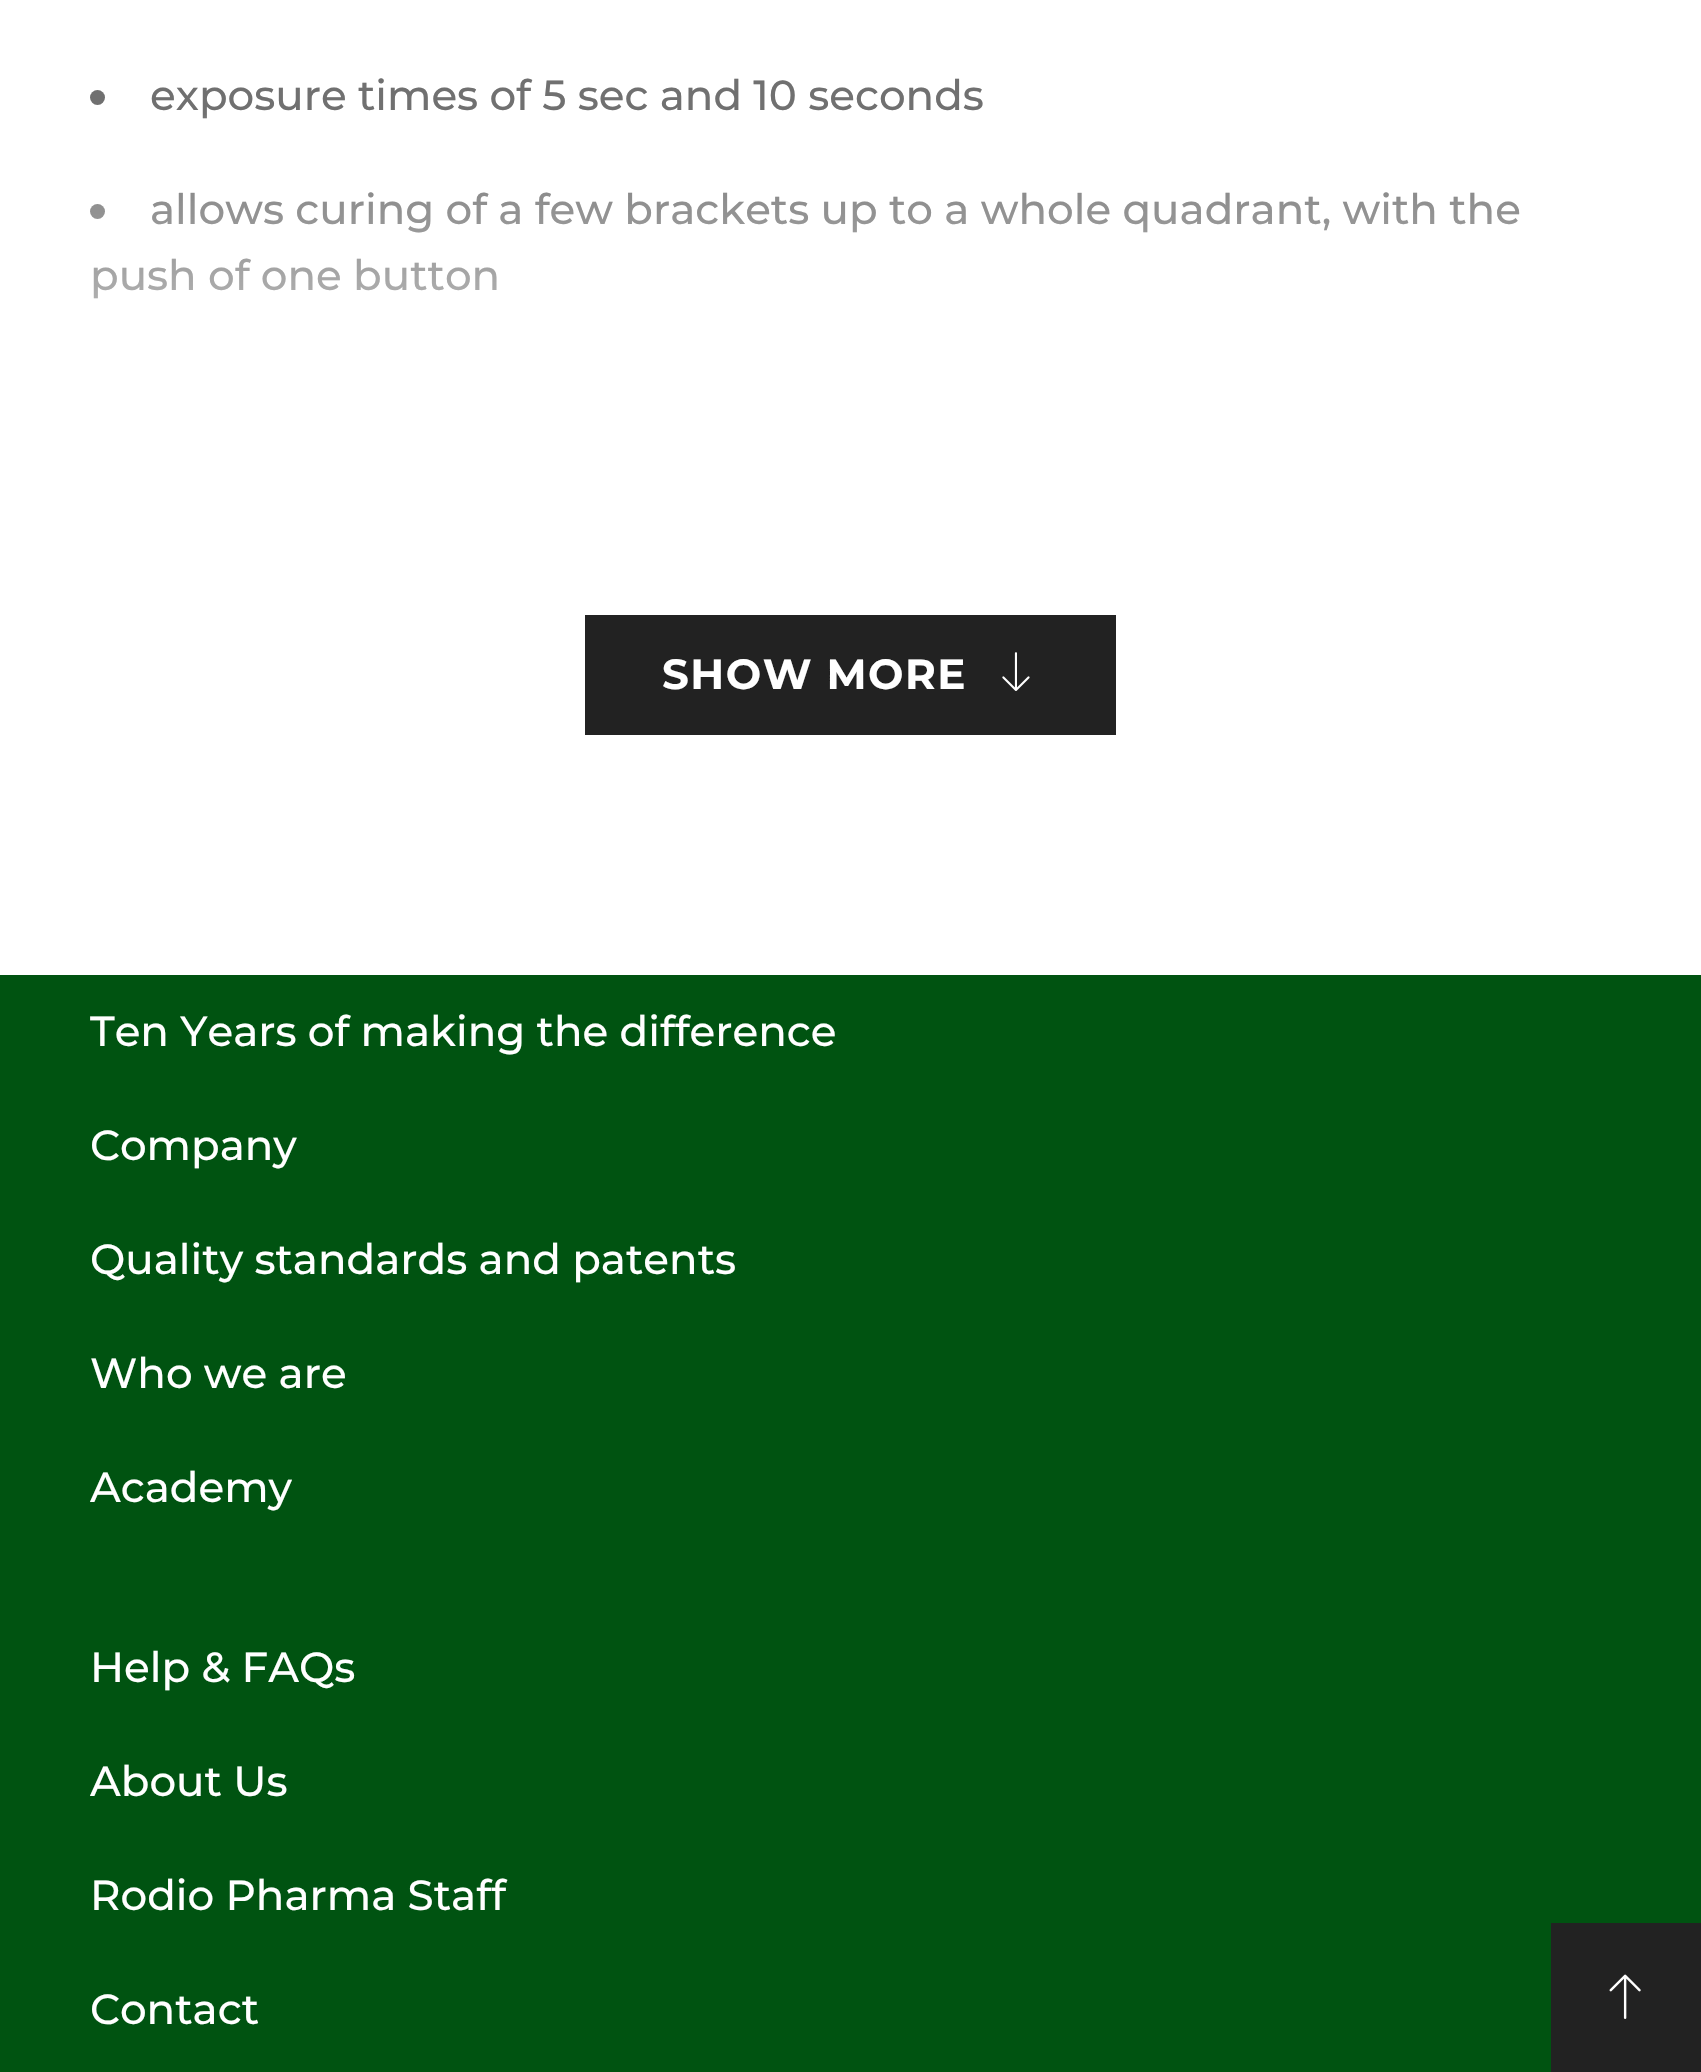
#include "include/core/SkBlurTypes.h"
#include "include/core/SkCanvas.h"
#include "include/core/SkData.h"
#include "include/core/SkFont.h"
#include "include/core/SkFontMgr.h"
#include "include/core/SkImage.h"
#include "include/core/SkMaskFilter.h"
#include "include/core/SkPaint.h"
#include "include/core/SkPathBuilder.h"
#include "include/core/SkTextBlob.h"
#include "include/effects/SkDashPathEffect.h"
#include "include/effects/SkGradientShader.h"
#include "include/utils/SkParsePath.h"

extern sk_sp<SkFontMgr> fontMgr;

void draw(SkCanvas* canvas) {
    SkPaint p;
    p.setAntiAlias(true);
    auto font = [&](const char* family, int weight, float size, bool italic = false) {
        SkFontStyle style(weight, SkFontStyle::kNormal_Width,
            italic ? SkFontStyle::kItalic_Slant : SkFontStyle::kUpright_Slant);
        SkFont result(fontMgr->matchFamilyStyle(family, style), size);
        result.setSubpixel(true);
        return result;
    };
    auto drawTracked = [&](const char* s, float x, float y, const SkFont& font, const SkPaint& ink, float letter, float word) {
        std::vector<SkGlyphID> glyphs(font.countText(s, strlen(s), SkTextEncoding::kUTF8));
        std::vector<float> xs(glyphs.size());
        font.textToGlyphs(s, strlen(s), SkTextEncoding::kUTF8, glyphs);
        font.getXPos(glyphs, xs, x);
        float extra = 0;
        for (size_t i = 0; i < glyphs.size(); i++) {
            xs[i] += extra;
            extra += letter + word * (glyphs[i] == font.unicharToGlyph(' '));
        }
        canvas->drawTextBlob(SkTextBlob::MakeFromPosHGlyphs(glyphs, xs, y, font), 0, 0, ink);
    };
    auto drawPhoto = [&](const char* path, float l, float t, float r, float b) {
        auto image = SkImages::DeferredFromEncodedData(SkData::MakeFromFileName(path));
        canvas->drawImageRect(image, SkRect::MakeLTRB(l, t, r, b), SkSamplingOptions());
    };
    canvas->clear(0xFFFFFFFF);
    p.setColor(0xFF707070);
    canvas->drawCircle(97.5f, 97.5f, 7.5f, p);
    auto font1 = font("Montserrat", 500, 42);
    canvas->drawString("exposure times of 5 sec and 10 seconds", 150, 110, font1, p);
    canvas->drawCircle(97.5f, 211.5f, 7.5f, p);
    canvas->drawString("allows curing of a few brackets up to a whole quadrant, with the", 150, 224, font1, p);
    canvas->drawString("push of one button", 90, 290, font1, p);
    {
        const SkColor colors[] = {0x00FFFFFF, 0xFFFFFFFF};
        const float stops[] = {0, 1};
        const SkPoint ends[] = {{851, 105}, {851, 555}};
        p.setShader(SkGradientShader::MakeLinear(ends, colors, stops, 2, SkTileMode::kClamp));
        p.setAlpha(255);
    }
    canvas->drawRect(SkRect::MakeLTRB(90, 115, 1520, 299), p);
    p.setShader(nullptr);
    p.setColor(0xFF222222);
    canvas->drawRect(SkRect::MakeLTRB(585, 615, 1116, 735), p);
    auto font2 = font("Montserrat", 700, 42);
    p.setColor(0xFFFFFFFF);
    drawTracked("SHOW MORE", 662, 689, font2, p, 1.5f, 0);
    drawPhoto("media/1.png", 1002, 652, 1030, 691);
    p.setColor(0xFF005311);
    canvas->drawRect(SkRect::MakeLTRB(0, 975, 1701, 2072), p);
    p.setColor(0xFFFFFFFF);
    {
        const struct { const char* s; float x, y; } items[] = {
            {"Ten Years of making the difference", 90, 1046},
            {"Company", 90, 1160},
            {"Quality standards and patents", 90, 1274},
            {"Who we are", 90, 1388},
            {"Academy", 90, 1502},
            {"Help & FAQs", 90, 1682},
            {"About Us", 90, 1796},
            {"Rodio Pharma Staff", 90, 1910},
            {"Contact", 90, 2024},
        };
        for (auto [s, x, y] : items) {
            canvas->drawString(s, x, y, font1, p);
        }
    }
    p.setColor(0xFF222222);
    canvas->drawRect(SkRect::MakeLTRB(1551, 1923, 1701, 2072), p);
    drawPhoto("media/2.png", 1609, 1974, 1641, 2019);
}
